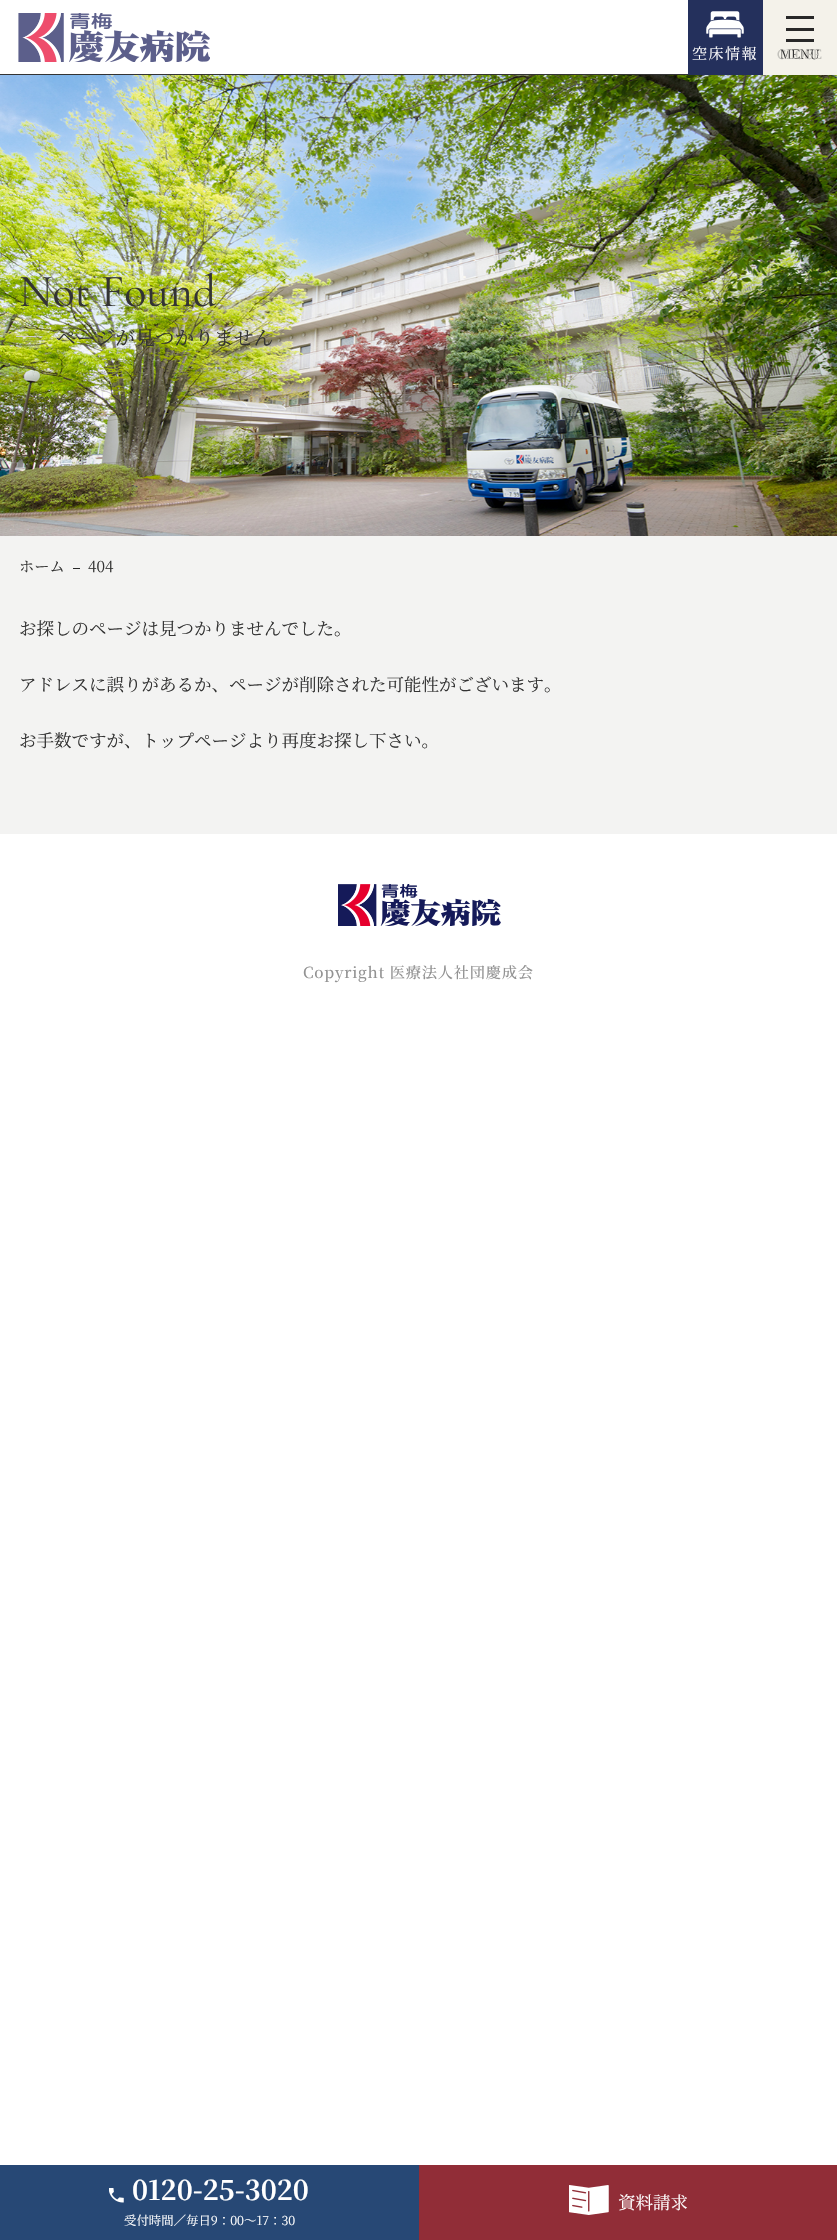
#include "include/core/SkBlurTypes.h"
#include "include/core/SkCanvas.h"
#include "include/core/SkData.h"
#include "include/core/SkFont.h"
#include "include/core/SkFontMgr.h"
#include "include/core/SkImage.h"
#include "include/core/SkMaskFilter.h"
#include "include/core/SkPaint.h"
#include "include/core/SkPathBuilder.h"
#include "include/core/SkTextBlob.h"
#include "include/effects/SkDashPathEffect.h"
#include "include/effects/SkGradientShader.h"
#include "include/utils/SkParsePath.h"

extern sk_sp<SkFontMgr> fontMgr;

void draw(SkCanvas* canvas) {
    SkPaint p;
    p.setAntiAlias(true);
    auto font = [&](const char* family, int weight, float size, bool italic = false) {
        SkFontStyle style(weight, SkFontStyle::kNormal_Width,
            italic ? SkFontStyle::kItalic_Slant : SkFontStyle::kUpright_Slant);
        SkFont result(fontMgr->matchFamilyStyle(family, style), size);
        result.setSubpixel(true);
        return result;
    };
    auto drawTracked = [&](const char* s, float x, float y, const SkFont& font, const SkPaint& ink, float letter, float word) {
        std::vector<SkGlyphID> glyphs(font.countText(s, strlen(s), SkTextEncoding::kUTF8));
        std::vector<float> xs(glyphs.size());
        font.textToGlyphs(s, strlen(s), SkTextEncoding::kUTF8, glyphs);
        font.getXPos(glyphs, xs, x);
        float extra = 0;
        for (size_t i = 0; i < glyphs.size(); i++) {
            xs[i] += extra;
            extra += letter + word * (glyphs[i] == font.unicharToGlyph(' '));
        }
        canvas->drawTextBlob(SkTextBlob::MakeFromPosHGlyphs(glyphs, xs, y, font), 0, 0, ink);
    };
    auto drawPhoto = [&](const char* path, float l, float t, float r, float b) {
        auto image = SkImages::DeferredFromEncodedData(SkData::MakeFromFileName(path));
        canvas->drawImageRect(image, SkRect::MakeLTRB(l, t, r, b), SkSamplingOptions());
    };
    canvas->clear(0xFFFFFFFF);
    p.setColor(0xFF333333);
    canvas->drawRect(SkRect::MakeLTRB(0, 74, 688, 75), p);
    drawPhoto("media/1.png", 18, 13, 210, 62);
    p.setColor(0xFF24305C);
    canvas->drawRect(SkRect::MakeLTRB(688, 0, 763, 75), p);
    drawPhoto("media/2.png", 706, 11, 744, 38);
    auto font1 = font("Noto Serif JP", 400, 15);
    p.setColor(0xFFFFFFFF);
    drawTracked("空床情報", 692, 59, font1, p, 1.5f, 0);
    {
        const struct { float l, t, r, b; SkColor color; } items[] = {
            {763, 0, 837, 75, 0xFFF4F2EA},
            {786, 28, 814, 31, 0xFF282828},
            {786, 16, 814, 19, 0xFF282828},
            {786, 39, 814, 42, 0xFF282828},
        };
        for (auto [l, t, r, b, color] : items) {
            p.setColor(color);
            canvas->drawRect(SkRect::MakeLTRB(l, t, r, b), p);
        }
    }
    auto font2 = font("Zen Old Mincho", 400, 13);
    p.setColor(0xFF333333);
    canvas->drawString("MENU", 780, 59, font2, p);
    p.setColor(0xFFC2C1BB);
    canvas->drawString("CLOSE", 777, 59, font2, p);
    p.setColor(0xFF274875);
    canvas->drawRect(SkRect::MakeLTRB(0, 2165, 419, 2240), p);
    drawPhoto("media/3.png", 109, 2188, 124, 2203);
    auto font3 = font("Noto Serif JP", 700, 27);
    p.setColor(0xFFFFFFFF);
    canvas->drawString("0120-25-3020", 132, 2200, font3, p);
    auto font4 = font("Noto Serif JP", 400, 12.4f);
    canvas->drawString("受付時間／毎日9：00～17：30", 124, 2225, font4, p);
    p.setColor(0xFF912D37);
    canvas->drawRect(SkRect::MakeLTRB(419, 2165, 837, 2240), p);
    drawPhoto("media/4.png", 569, 2185, 609, 2215);
    auto font5 = font("Noto Serif JP", 400, 17.5f);
    p.setColor(0xFFFFFFFF);
    canvas->drawString("資料請求", 618, 2209, font5, p);
    p.setColor(0xFFF3F3F2);
    canvas->drawRect(SkRect::MakeLTRB(0, 536, 837, 834), p);
    drawPhoto("media/5.png", 0, 75, 837, 536);
    auto font6 = font("Cormorant Garamond", 400, 46);
    p.setColor(0xFF333333);
    canvas->drawString("Not Found", 19, 306, font6, p);
    p.setColor(0xFFD0CDCD);
    canvas->drawRect(SkRect::MakeLTRB(16, 336, 36, 337), p);
    auto font7 = font("Noto Serif JP", 400, 19.75f);
    p.setColor(0xFF333333);
    canvas->drawString("ページが見つかりません", 56, 345, font7, p);
    auto font8 = font("Noto Serif JP", 400, 15.25f);
    canvas->drawString("ホーム", 19, 572, font8, p);
    p.setColor(0xFF282828);
    canvas->drawRect(SkRect::MakeLTRB(73, 568, 80, 569), p);
    p.setColor(0xFF333333);
    canvas->drawString("404", 88, 572, font8, p);
    {
        const struct { const char* s; float x, y; } items[] = {
            {"お探しのページは見つかりませんでした。", 19, 635},
            {"アドレスに誤りがあるか、ページが削除された可能性がございます。", 19, 691},
            {"お手数ですが、トップページより再度お探し下さい。", 19, 747},
        };
        for (auto [s, x, y] : items) {
            canvas->drawString(s, x, y, font5, p);
        }
    }
    drawPhoto("media/6.png", 338, 884, 501, 926);
    auto font9 = font("Noto Serif JP", 500, 15.25f);
    p.setColor(0xFF929292);
    drawTracked("Copyright 医療法人社団慶成会", 303, 978, font9, p, 0.75f, 0);
}
